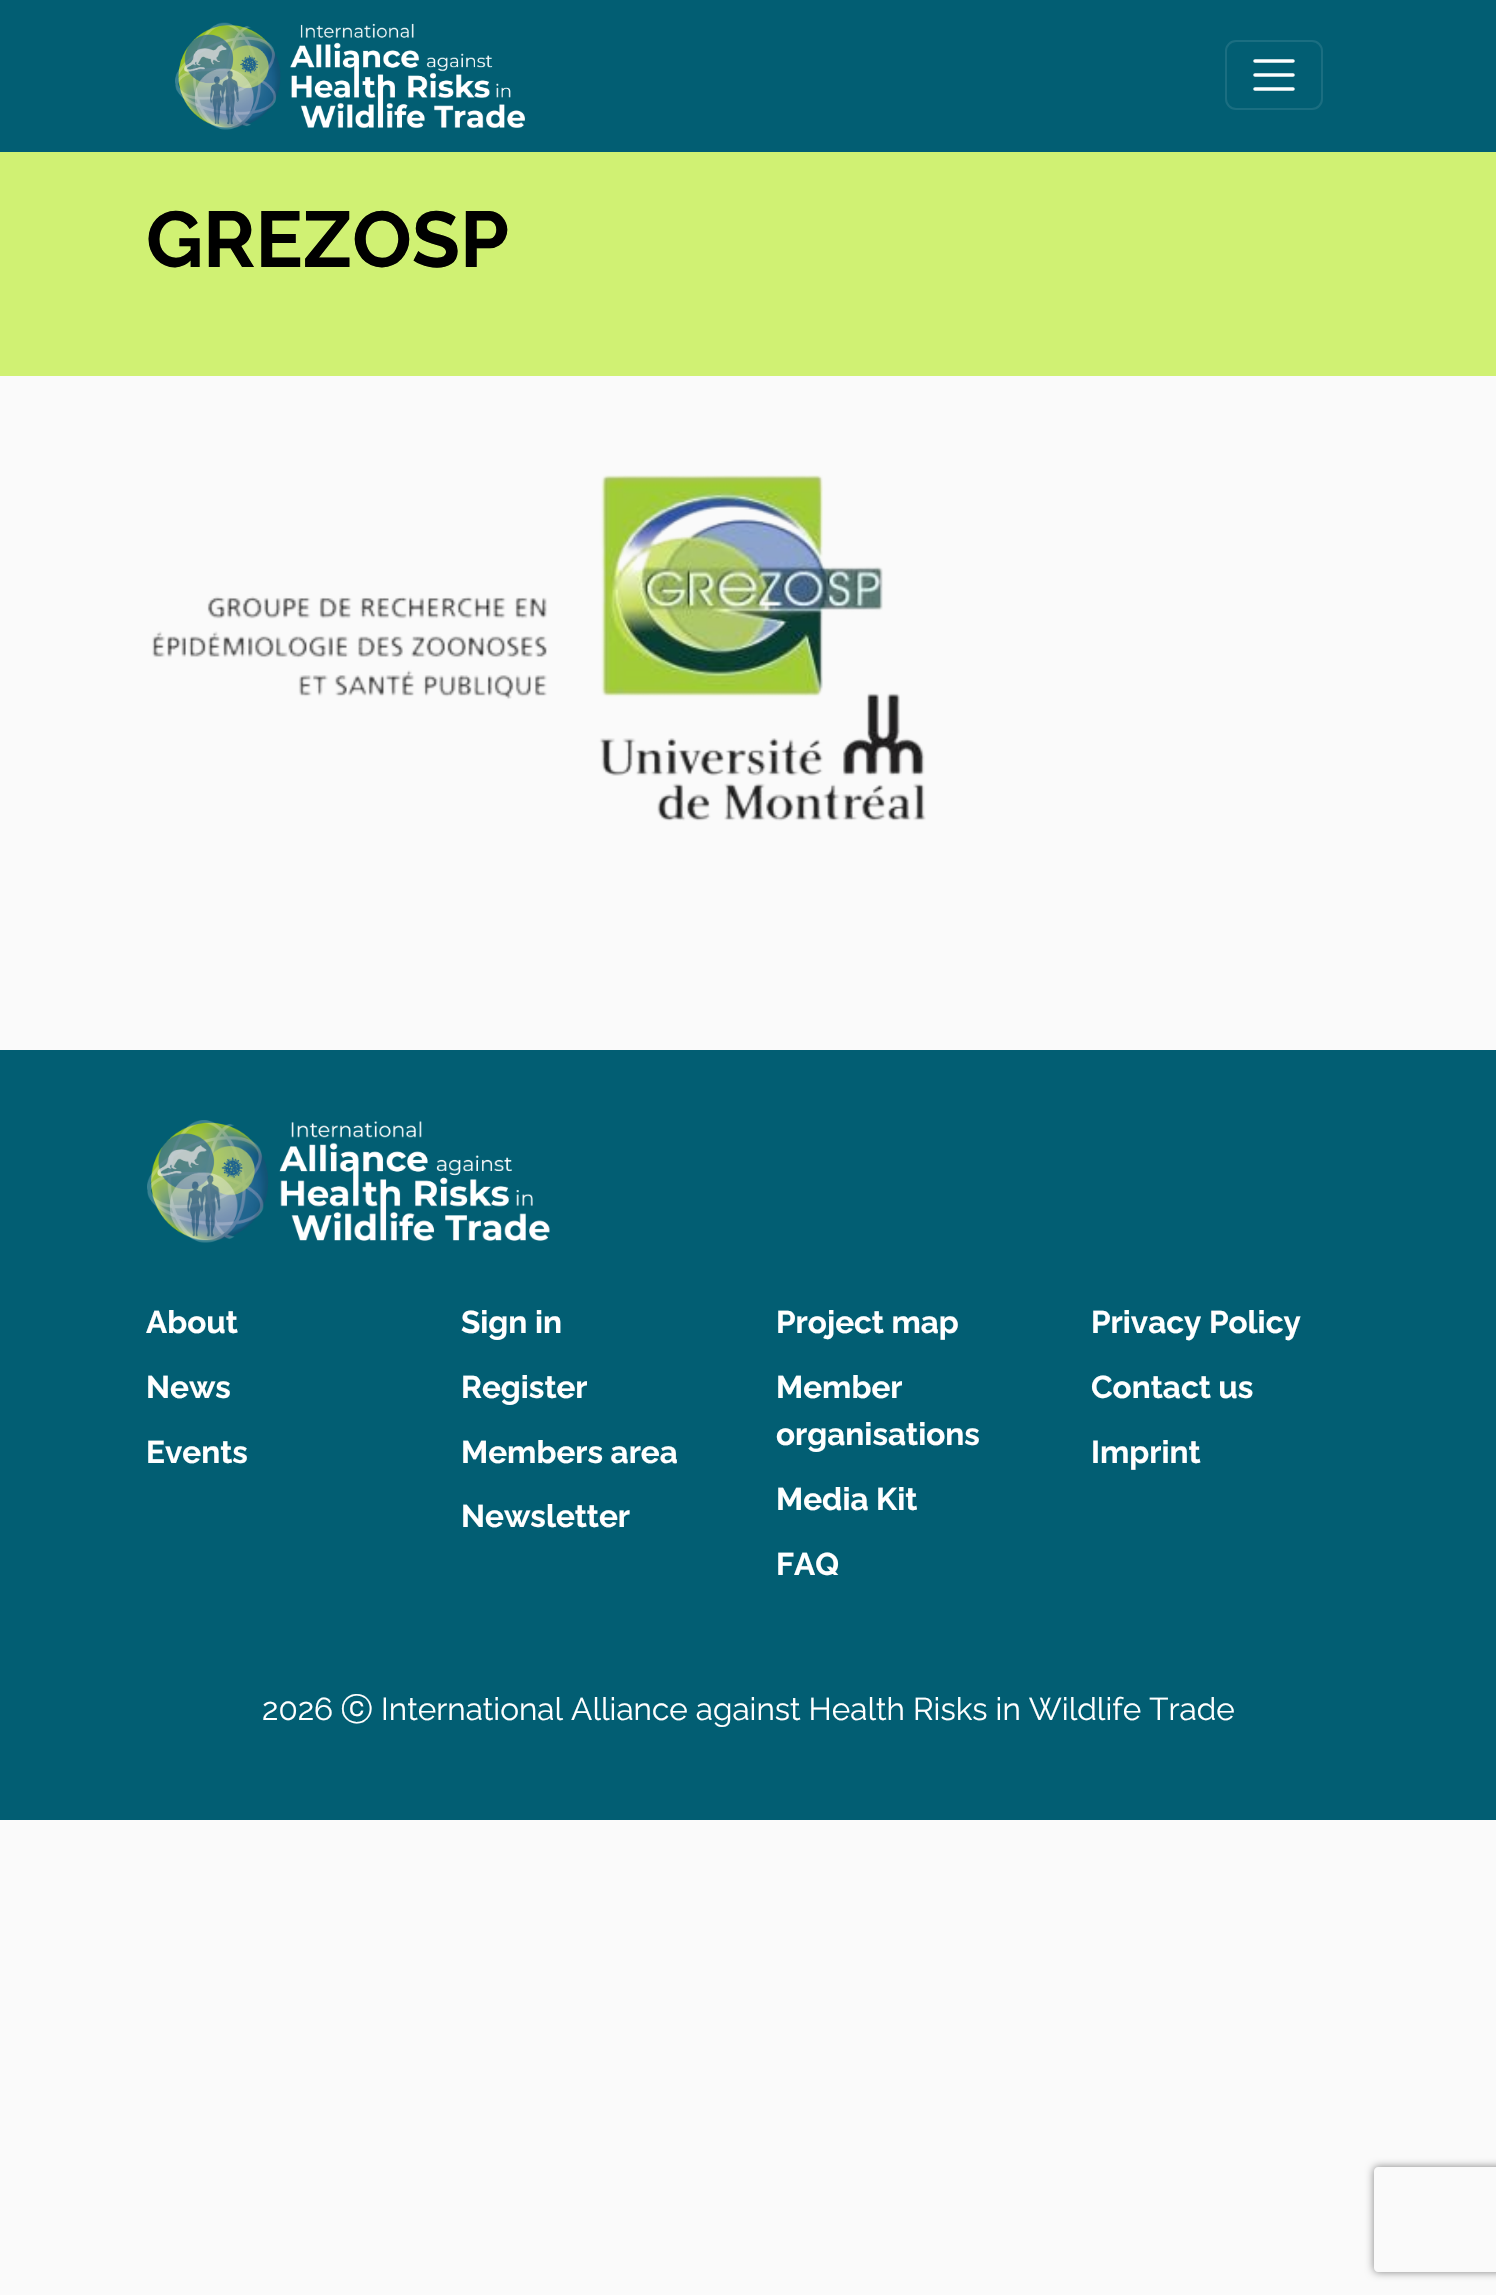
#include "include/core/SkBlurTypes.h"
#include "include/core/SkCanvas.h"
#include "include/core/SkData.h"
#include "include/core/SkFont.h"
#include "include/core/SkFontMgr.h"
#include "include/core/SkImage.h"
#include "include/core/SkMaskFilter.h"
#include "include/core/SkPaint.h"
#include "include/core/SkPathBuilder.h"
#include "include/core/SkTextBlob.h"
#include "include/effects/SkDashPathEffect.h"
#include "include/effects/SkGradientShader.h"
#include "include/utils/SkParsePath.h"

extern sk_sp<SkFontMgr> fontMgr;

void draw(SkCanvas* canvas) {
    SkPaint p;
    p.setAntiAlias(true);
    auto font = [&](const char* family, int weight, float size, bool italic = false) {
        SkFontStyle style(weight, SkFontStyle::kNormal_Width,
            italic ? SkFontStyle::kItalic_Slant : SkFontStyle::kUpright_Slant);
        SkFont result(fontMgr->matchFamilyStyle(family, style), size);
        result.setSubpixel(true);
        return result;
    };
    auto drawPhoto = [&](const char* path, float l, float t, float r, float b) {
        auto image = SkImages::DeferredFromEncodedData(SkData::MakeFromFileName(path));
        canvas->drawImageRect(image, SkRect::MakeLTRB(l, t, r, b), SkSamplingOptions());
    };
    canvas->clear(0xFFFAFAFA);
    p.setColor(0xFF025E73);
    canvas->drawRect(SkRect::MakeLTRB(0, 0, 1496, 152), p);
    drawPhoto("media/1.png", 175, 22, 525, 130);
    p.setStyle(SkPaint::kStroke_Style);
    p.setStrokeWidth(2);
    p.setColor(0xFF1B6E81);
    canvas->drawRoundRect(SkRect::MakeLTRB(1226, 41, 1322, 109), 10, 10, p);
    p.setStrokeWidth(3.5f);
    p.setStrokeCap(SkPaint::kRound_Cap);
    p.setColor(0xFFFFFFFF);
    canvas->drawPath(SkPathBuilder().moveTo(1255, 61).lineTo(1293, 61).moveTo(1255, 75).lineTo(1293, 75).moveTo(1255, 89).lineTo(1293, 89).detach(), p);
    p.setStyle(SkPaint::kFill_Style);
    p.setColor(0xFFD0F173);
    canvas->drawRect(SkRect::MakeLTRB(0, 152, 1496, 376), p);
    auto font1 = font("Raleway", 700, 78.75f);
    p.setColor(0xFF000000);
    canvas->drawString("GREZOSP", 146, 267, font1, p);
    drawPhoto("media/2.png", 152, 474, 926, 821);
    p.setColor(0xFF025E73);
    canvas->drawRect(SkRect::MakeLTRB(0, 1050, 1496, 1820), p);
    drawPhoto("media/3.png", 147, 1120, 550, 1243);
    auto font2 = font("Raleway", 700, 31.5f);
    p.setColor(0xFFFFFFFF);
    {
        const struct { const char* s; float x, y; } items[] = {
            {"About", 146, 1333},
            {"News", 146, 1398},
            {"Events", 146, 1463},
            {"Sign in", 461, 1333},
            {"Register", 461, 1398},
            {"Members area", 461, 1463},
            {"Newsletter", 461, 1527},
            {"Project map", 776, 1333},
            {"Member", 776, 1398},
            {"organisations", 776, 1445},
            {"Media Kit", 776, 1510},
            {"FAQ", 776, 1575},
            {"Privacy Policy", 1091, 1333},
            {"Contact us", 1091, 1398},
            {"Imprint", 1091, 1463},
        };
        for (auto [s, x, y] : items) {
            canvas->drawString(s, x, y, font2, p);
        }
    }
    auto font3 = font("Raleway", 400, 31.5f);
    canvas->drawString("2026", 262, 1720, font3, p);
    auto font4 = font("WenQuanYi Zen Hei", 500, 31.5f);
    canvas->drawString("ⓒ", 341, 1720, font4, p);
    canvas->drawString("International Alliance against Health Risks in Wildlife Trade", 381, 1720, font3, p);
    canvas->save();
    canvas->clipPath(SkPathBuilder(SkPathFillType::kEvenOdd).moveTo(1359, 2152).lineTo(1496, 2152).lineTo(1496, 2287).lineTo(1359, 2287).close().moveTo(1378, 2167).lineTo(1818, 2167).cubicTo(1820, 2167, 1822, 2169, 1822, 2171).lineTo(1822, 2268).cubicTo(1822, 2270, 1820, 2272, 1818, 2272).lineTo(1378, 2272).cubicTo(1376, 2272, 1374, 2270, 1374, 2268).lineTo(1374, 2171).cubicTo(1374, 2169, 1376, 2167, 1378, 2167).close().detach(), true);
    p.setColor(0xFF808080);
    p.setMaskFilter(SkMaskFilter::MakeBlur(kNormal_SkBlurStyle, 4.5f));
    canvas->drawRoundRect(SkRect::MakeLTRB(1374, 2167, 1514, 2272), 4, 4, p);
    p.setMaskFilter(nullptr);
    canvas->restore();
}
